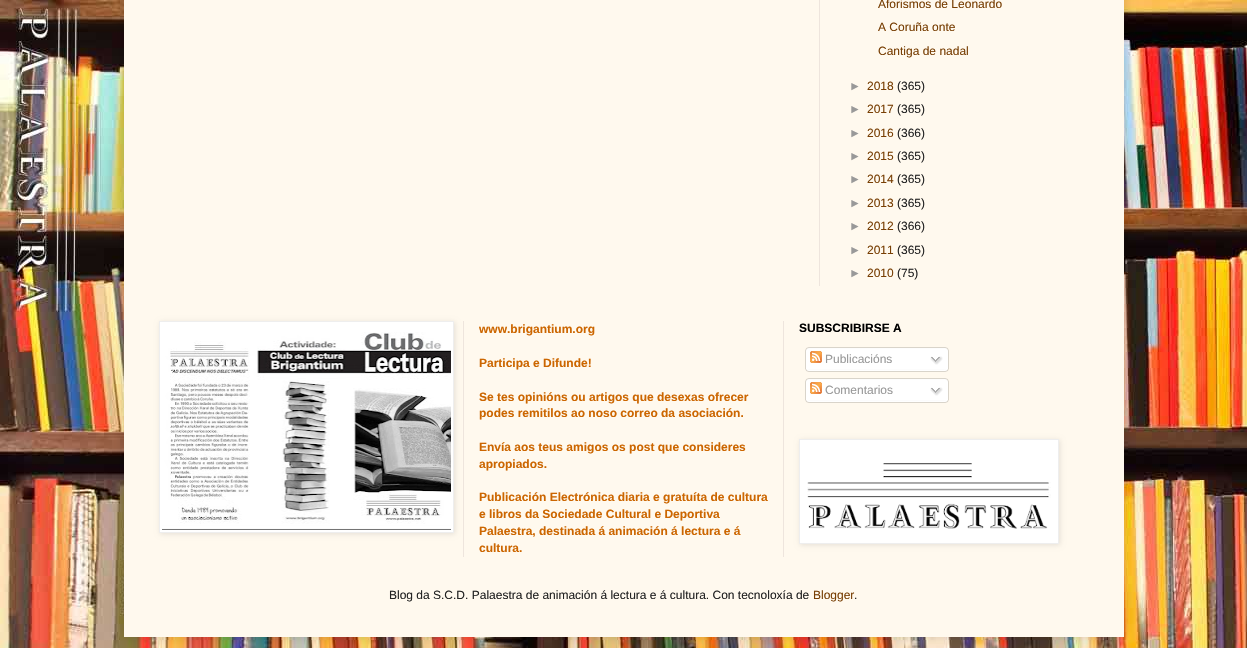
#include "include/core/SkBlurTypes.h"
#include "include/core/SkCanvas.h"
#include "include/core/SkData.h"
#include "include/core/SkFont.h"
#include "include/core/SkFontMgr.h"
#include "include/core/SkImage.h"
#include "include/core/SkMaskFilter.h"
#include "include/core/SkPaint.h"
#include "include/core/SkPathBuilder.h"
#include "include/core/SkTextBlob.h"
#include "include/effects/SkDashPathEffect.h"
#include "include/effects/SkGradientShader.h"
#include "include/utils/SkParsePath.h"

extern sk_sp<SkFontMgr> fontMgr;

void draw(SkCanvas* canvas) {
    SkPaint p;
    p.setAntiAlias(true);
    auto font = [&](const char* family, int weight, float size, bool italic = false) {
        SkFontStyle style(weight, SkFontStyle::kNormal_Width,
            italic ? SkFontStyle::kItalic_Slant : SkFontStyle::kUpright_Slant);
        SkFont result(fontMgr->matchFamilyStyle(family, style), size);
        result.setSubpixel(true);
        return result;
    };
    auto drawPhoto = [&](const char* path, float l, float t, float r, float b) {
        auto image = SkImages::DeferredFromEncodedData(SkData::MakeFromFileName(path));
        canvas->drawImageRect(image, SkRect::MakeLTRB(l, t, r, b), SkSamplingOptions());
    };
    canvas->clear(0xFFFFFFFF);
    drawPhoto("media/1.png", 0, 0, 1247, 648);
    p.setColor(0x26000000);
    p.setMaskFilter(SkMaskFilter::MakeBlur(kNormal_SkBlurStyle, 5));
    canvas->drawRect(SkRect::MakeLTRB(124, -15, 1124, 637), p);
    p.setMaskFilter(nullptr);
    p.setColor(0xFFFFF9EE);
    canvas->drawRect(SkRect::MakeLTRB(124, 0, 1124, 637), p);
    p.setColor(0xFFEEE5DD);
    canvas->drawRect(SkRect::MakeLTRB(819, 0, 820, 286), p);
    auto font1 = font("Liberation Sans", 400, 12);
    p.setColor(0xFF783F04);
    {
        const struct { const char* s; float x, y; } items[] = {
            {"Aforismos de Leonardo", 878, 8},
            {"A Coruña onte", 878, 31},
            {"Cantiga de nadal", 878, 55},
        };
        for (auto [s, x, y] : items) {
            canvas->drawString(s, x, y, font1, p);
        }
    }
    p.setColor(0xFF999999);
    canvas->drawString("►", 849, 90, font1, p);
    p.setColor(0xFF783F04);
    canvas->drawString("2018", 867, 90, font1, p);
    p.setColor(0xFF222222);
    canvas->drawString("(365)", 897, 90, font1, p);
    p.setColor(0xFF999999);
    canvas->drawString("►", 849, 113, font1, p);
    p.setColor(0xFF783F04);
    canvas->drawString("2017", 867, 113, font1, p);
    p.setColor(0xFF222222);
    canvas->drawString("(365)", 897, 113, font1, p);
    p.setColor(0xFF999999);
    canvas->drawString("►", 849, 137, font1, p);
    p.setColor(0xFF783F04);
    canvas->drawString("2016", 867, 137, font1, p);
    p.setColor(0xFF222222);
    canvas->drawString("(366)", 897, 137, font1, p);
    p.setColor(0xFF999999);
    canvas->drawString("►", 849, 160, font1, p);
    p.setColor(0xFF783F04);
    canvas->drawString("2015", 867, 160, font1, p);
    p.setColor(0xFF222222);
    canvas->drawString("(365)", 897, 160, font1, p);
    p.setColor(0xFF999999);
    canvas->drawString("►", 849, 183, font1, p);
    p.setColor(0xFF783F04);
    canvas->drawString("2014", 867, 183, font1, p);
    p.setColor(0xFF222222);
    canvas->drawString("(365)", 897, 183, font1, p);
    p.setColor(0xFF999999);
    canvas->drawString("►", 849, 207, font1, p);
    p.setColor(0xFF783F04);
    canvas->drawString("2013", 867, 207, font1, p);
    p.setColor(0xFF222222);
    canvas->drawString("(365)", 897, 207, font1, p);
    p.setColor(0xFF999999);
    canvas->drawString("►", 849, 230, font1, p);
    p.setColor(0xFF783F04);
    canvas->drawString("2012", 867, 230, font1, p);
    p.setColor(0xFF222222);
    canvas->drawString("(366)", 897, 230, font1, p);
    p.setColor(0xFF999999);
    canvas->drawString("►", 849, 254, font1, p);
    p.setColor(0xFF783F04);
    canvas->drawString("2011", 867, 254, font1, p);
    p.setColor(0xFF222222);
    canvas->drawString("(365)", 897, 254, font1, p);
    p.setColor(0xFF999999);
    canvas->drawString("►", 849, 277, font1, p);
    p.setColor(0xFF783F04);
    canvas->drawString("2010", 867, 277, font1, p);
    p.setColor(0xFF222222);
    canvas->drawString("(75)", 897, 277, font1, p);
    p.setColor(0xFFEEE5DD);
    canvas->drawRect(SkRect::MakeLTRB(463, 321, 464, 557), p);
    p.setColor(0x1A000000);
    p.setMaskFilter(SkMaskFilter::MakeBlur(kNormal_SkBlurStyle, 2.5f));
    canvas->drawRect(SkRect::MakeLTRB(160, 322, 455, 534), p);
    p.setMaskFilter(nullptr);
    p.setColor(0xFFFFFFFF);
    canvas->drawRect(SkRect::MakeLTRB(159.5f, 321.5f, 453.5f, 532.5f), p);
    p.setStyle(SkPaint::kStroke_Style);
    p.setStrokeWidth(1);
    p.setColor(0xFFEEEEEE);
    canvas->drawRect(SkRect::MakeLTRB(159.5f, 321.5f, 453.5f, 532.5f), p);
    drawPhoto("media/2.png", 162, 332, 451, 530);
    auto font2 = font("Liberation Sans", 700, 12);
    p.setStyle(SkPaint::kFill_Style);
    p.setColor(0xFFCC6600);
    {
        const struct { const char* s; float x, y; } items[] = {
            {"www.brigantium.org", 479, 333},
            {"Participa e Difunde!", 479, 367},
            {"Se tes opinións ou artigos que desexas ofrecer", 479, 401},
            {"podes remitilos ao noso correo da asociación.", 479, 417},
            {"Envía aos teus amigos os post que consideres", 479, 451},
            {"apropiados.", 479, 468},
            {"Publicación Electrónica diaria e gratuíta de cultura", 479, 501},
            {"e libros da Sociedade Cultural e Deportiva", 479, 518},
            {"Palaestra, destinada á animación á lectura e á", 479, 535},
            {"cultura.", 479, 552},
        };
        for (auto [s, x, y] : items) {
            canvas->drawString(s, x, y, font2, p);
        }
    }
    p.setColor(0xFFEEE5DD);
    canvas->drawRect(SkRect::MakeLTRB(783, 321, 784, 557), p);
    p.setColor(0xFF000000);
    canvas->drawString("SUBSCRIBIRSE A", 799, 332, font2, p);
    drawPhoto("media/3.png", 805, 347, 949, 369);
    drawPhoto("media/4.png", 810, 351, 822, 363);
    p.setColor(0xFF999999);
    canvas->drawString("Publicacións", 825, 363, font1, p);
    drawPhoto("media/5.png", 930, 356, 943, 365);
    drawPhoto("media/6.png", 805, 369, 949, 372);
    drawPhoto("media/3.png", 805, 378, 949, 400);
    drawPhoto("media/4.png", 810, 382, 822, 394);
    canvas->drawString("Comentarios", 825, 394, font1, p);
    drawPhoto("media/5.png", 930, 387, 943, 396);
    drawPhoto("media/6.png", 805, 400, 949, 403);
    p.setColor(0x1A000000);
    p.setMaskFilter(SkMaskFilter::MakeBlur(kNormal_SkBlurStyle, 2.5f));
    canvas->drawRect(SkRect::MakeLTRB(800, 440, 1060, 545), p);
    p.setMaskFilter(nullptr);
    p.setColor(0xFFFFFFFF);
    canvas->drawRect(SkRect::MakeLTRB(799.5f, 439.5f, 1058.5f, 543.5f), p);
    p.setStyle(SkPaint::kStroke_Style);
    p.setColor(0xFFEEEEEE);
    canvas->drawRect(SkRect::MakeLTRB(799.5f, 439.5f, 1058.5f, 543.5f), p);
    drawPhoto("media/7.png", 807, 463, 1051, 529);
    p.setStyle(SkPaint::kFill_Style);
    p.setColor(0xFF222222);
    canvas->drawString("Blog da S.C.D. Palaestra de animación á lectura e á cultura. Con tecnoloxía de", 389, 599, font1, p);
    p.setColor(0xFF783F04);
    canvas->drawString("Blogger", 813, 599, font1, p);
    p.setColor(0xFF222222);
    canvas->drawString(".", 854, 599, font1, p);
}
